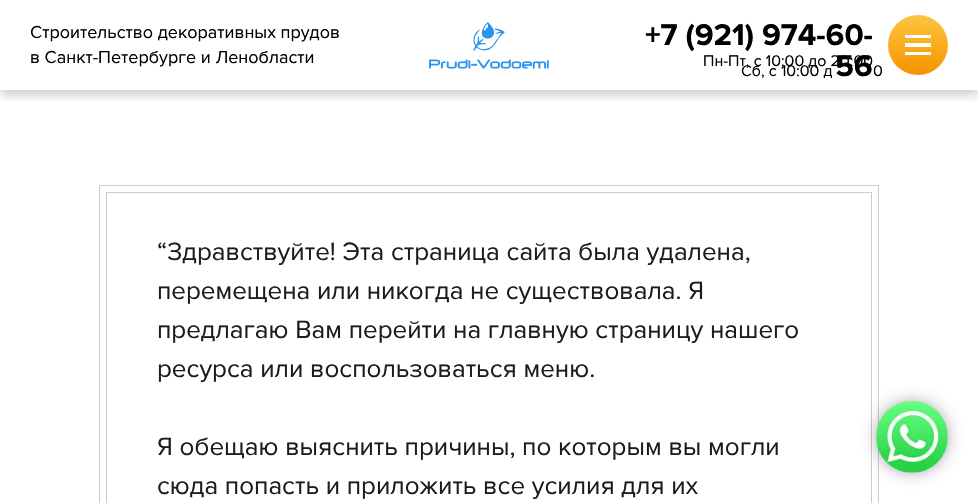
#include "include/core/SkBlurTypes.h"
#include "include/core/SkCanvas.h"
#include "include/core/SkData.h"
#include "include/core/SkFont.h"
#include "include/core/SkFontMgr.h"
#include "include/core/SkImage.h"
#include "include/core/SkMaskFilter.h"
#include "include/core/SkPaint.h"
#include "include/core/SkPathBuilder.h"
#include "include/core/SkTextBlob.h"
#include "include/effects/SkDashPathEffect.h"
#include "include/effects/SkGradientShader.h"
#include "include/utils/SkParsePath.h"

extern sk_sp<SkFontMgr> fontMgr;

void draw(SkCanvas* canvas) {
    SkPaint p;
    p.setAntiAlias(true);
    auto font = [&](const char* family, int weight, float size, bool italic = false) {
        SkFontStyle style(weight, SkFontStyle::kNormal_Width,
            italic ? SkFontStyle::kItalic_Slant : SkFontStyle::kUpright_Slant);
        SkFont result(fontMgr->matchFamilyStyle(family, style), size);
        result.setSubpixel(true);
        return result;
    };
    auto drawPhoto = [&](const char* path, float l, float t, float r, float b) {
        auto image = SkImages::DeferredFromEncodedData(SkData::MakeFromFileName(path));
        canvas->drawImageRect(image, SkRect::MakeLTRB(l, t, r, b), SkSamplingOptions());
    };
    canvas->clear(0xFFFFFFFF);
    canvas->save();
    canvas->clipRect(SkRect::MakeLTRB(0, 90, 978, 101));
    p.setColor(0x33000000);
    p.setMaskFilter(SkMaskFilter::MakeBlur(kNormal_SkBlurStyle, 5));
    canvas->drawRect(SkRect::MakeLTRB(0, 5, 978, 95), p);
    p.setMaskFilter(nullptr);
    canvas->restore();
    auto font1 = font("Proxima Nova", 400, 18);
    p.setColor(0xFF000000);
    canvas->drawString("Строительство декоративных прудов", 30, 38, font1, p);
    canvas->drawString("в Санкт-Петербурге и Ленобласти", 30, 63, font1, p);
    drawPhoto("media/1.png", 429, 22, 549, 69);
    auto font2 = font("Proxima Nova", 700, 31);
    canvas->drawString("+7 (921) 974-60-", 645, 45, font2, p);
    auto font3 = font("Proxima Nova", 400, 16);
    canvas->drawString("Пн-Пт, с 10:00 до 20:00", 703, 66, font3, p);
    canvas->drawString("56", 835, 76, font2, p);
    {
        const SkColor colors[] = {0xFFFDC53F, 0xFFF59300};
        const float stops[] = {0, 1};
        const SkPoint ends[] = {{918, 15}, {918, 75}};
        p.setShader(SkGradientShader::MakeLinear(ends, colors, stops, 2, SkTileMode::kClamp));
        p.setAlpha(255);
    }
    canvas->drawCircle(918, 45, 30, p);
    p.setShader(nullptr);
    {
        const struct { float l, t, r, b; SkColor color; } items[] = {
            {905, 35, 931, 38, 0xFFFFFFFF},
            {905, 43, 931, 47, 0xFFFFFFFF},
            {905, 52, 931, 55, 0xFFFFFFFF},
        };
        for (auto [l, t, r, b, color] : items) {
            p.setColor(color);
            canvas->drawRect(SkRect::MakeLTRB(l, t, r, b), p);
        }
    }
    p.setColor(0xFF000000);
    canvas->drawString("Сб, с 10:00 д", 741, 76, font3, p);
    canvas->drawString("0", 873, 76, font3, p);
    p.setStyle(SkPaint::kStroke_Style);
    p.setStrokeWidth(1);
    p.setColor(0xFFCCCCCC);
    canvas->drawRect(SkRect::MakeLTRB(99.5f, 185.5f, 878.5f, 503.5f), p);
    canvas->drawRect(SkRect::MakeLTRB(106.5f, 192.5f, 871.5f, 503.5f), p);
    p.setStyle(SkPaint::kFill_Style);
    p.setColor(0xB3000000);
    p.setMaskFilter(SkMaskFilter::MakeBlur(kNormal_SkBlurStyle, 10));
    canvas->drawRoundRect(SkRect::MakeLTRB(882, 407, 942, 467), 30, 30, p);
    p.setMaskFilter(nullptr);
    drawPhoto("media/2.png", 876, 401, 948, 473);
    auto font4 = font("Proxima Nova", 400, 26);
    p.setColor(0xFF1C1C1C);
    {
        const struct { const char* s; float x, y; } items[] = {
            {"“Здравствуйте! Эта страница сайта была удалена,", 157, 260},
            {"перемещена или никогда не существовала. Я", 157, 299},
            {"предлагаю Вам перейти на главную страницу нашего", 157, 338},
            {"ресурса или воспользоваться меню.", 157, 377},
            {"Я обещаю выяснить причины, по которым вы могли", 157, 455},
            {"сюда попасть и приложить все усилия для их", 157, 494},
        };
        for (auto [s, x, y] : items) {
            canvas->drawString(s, x, y, font4, p);
        }
    }
}
